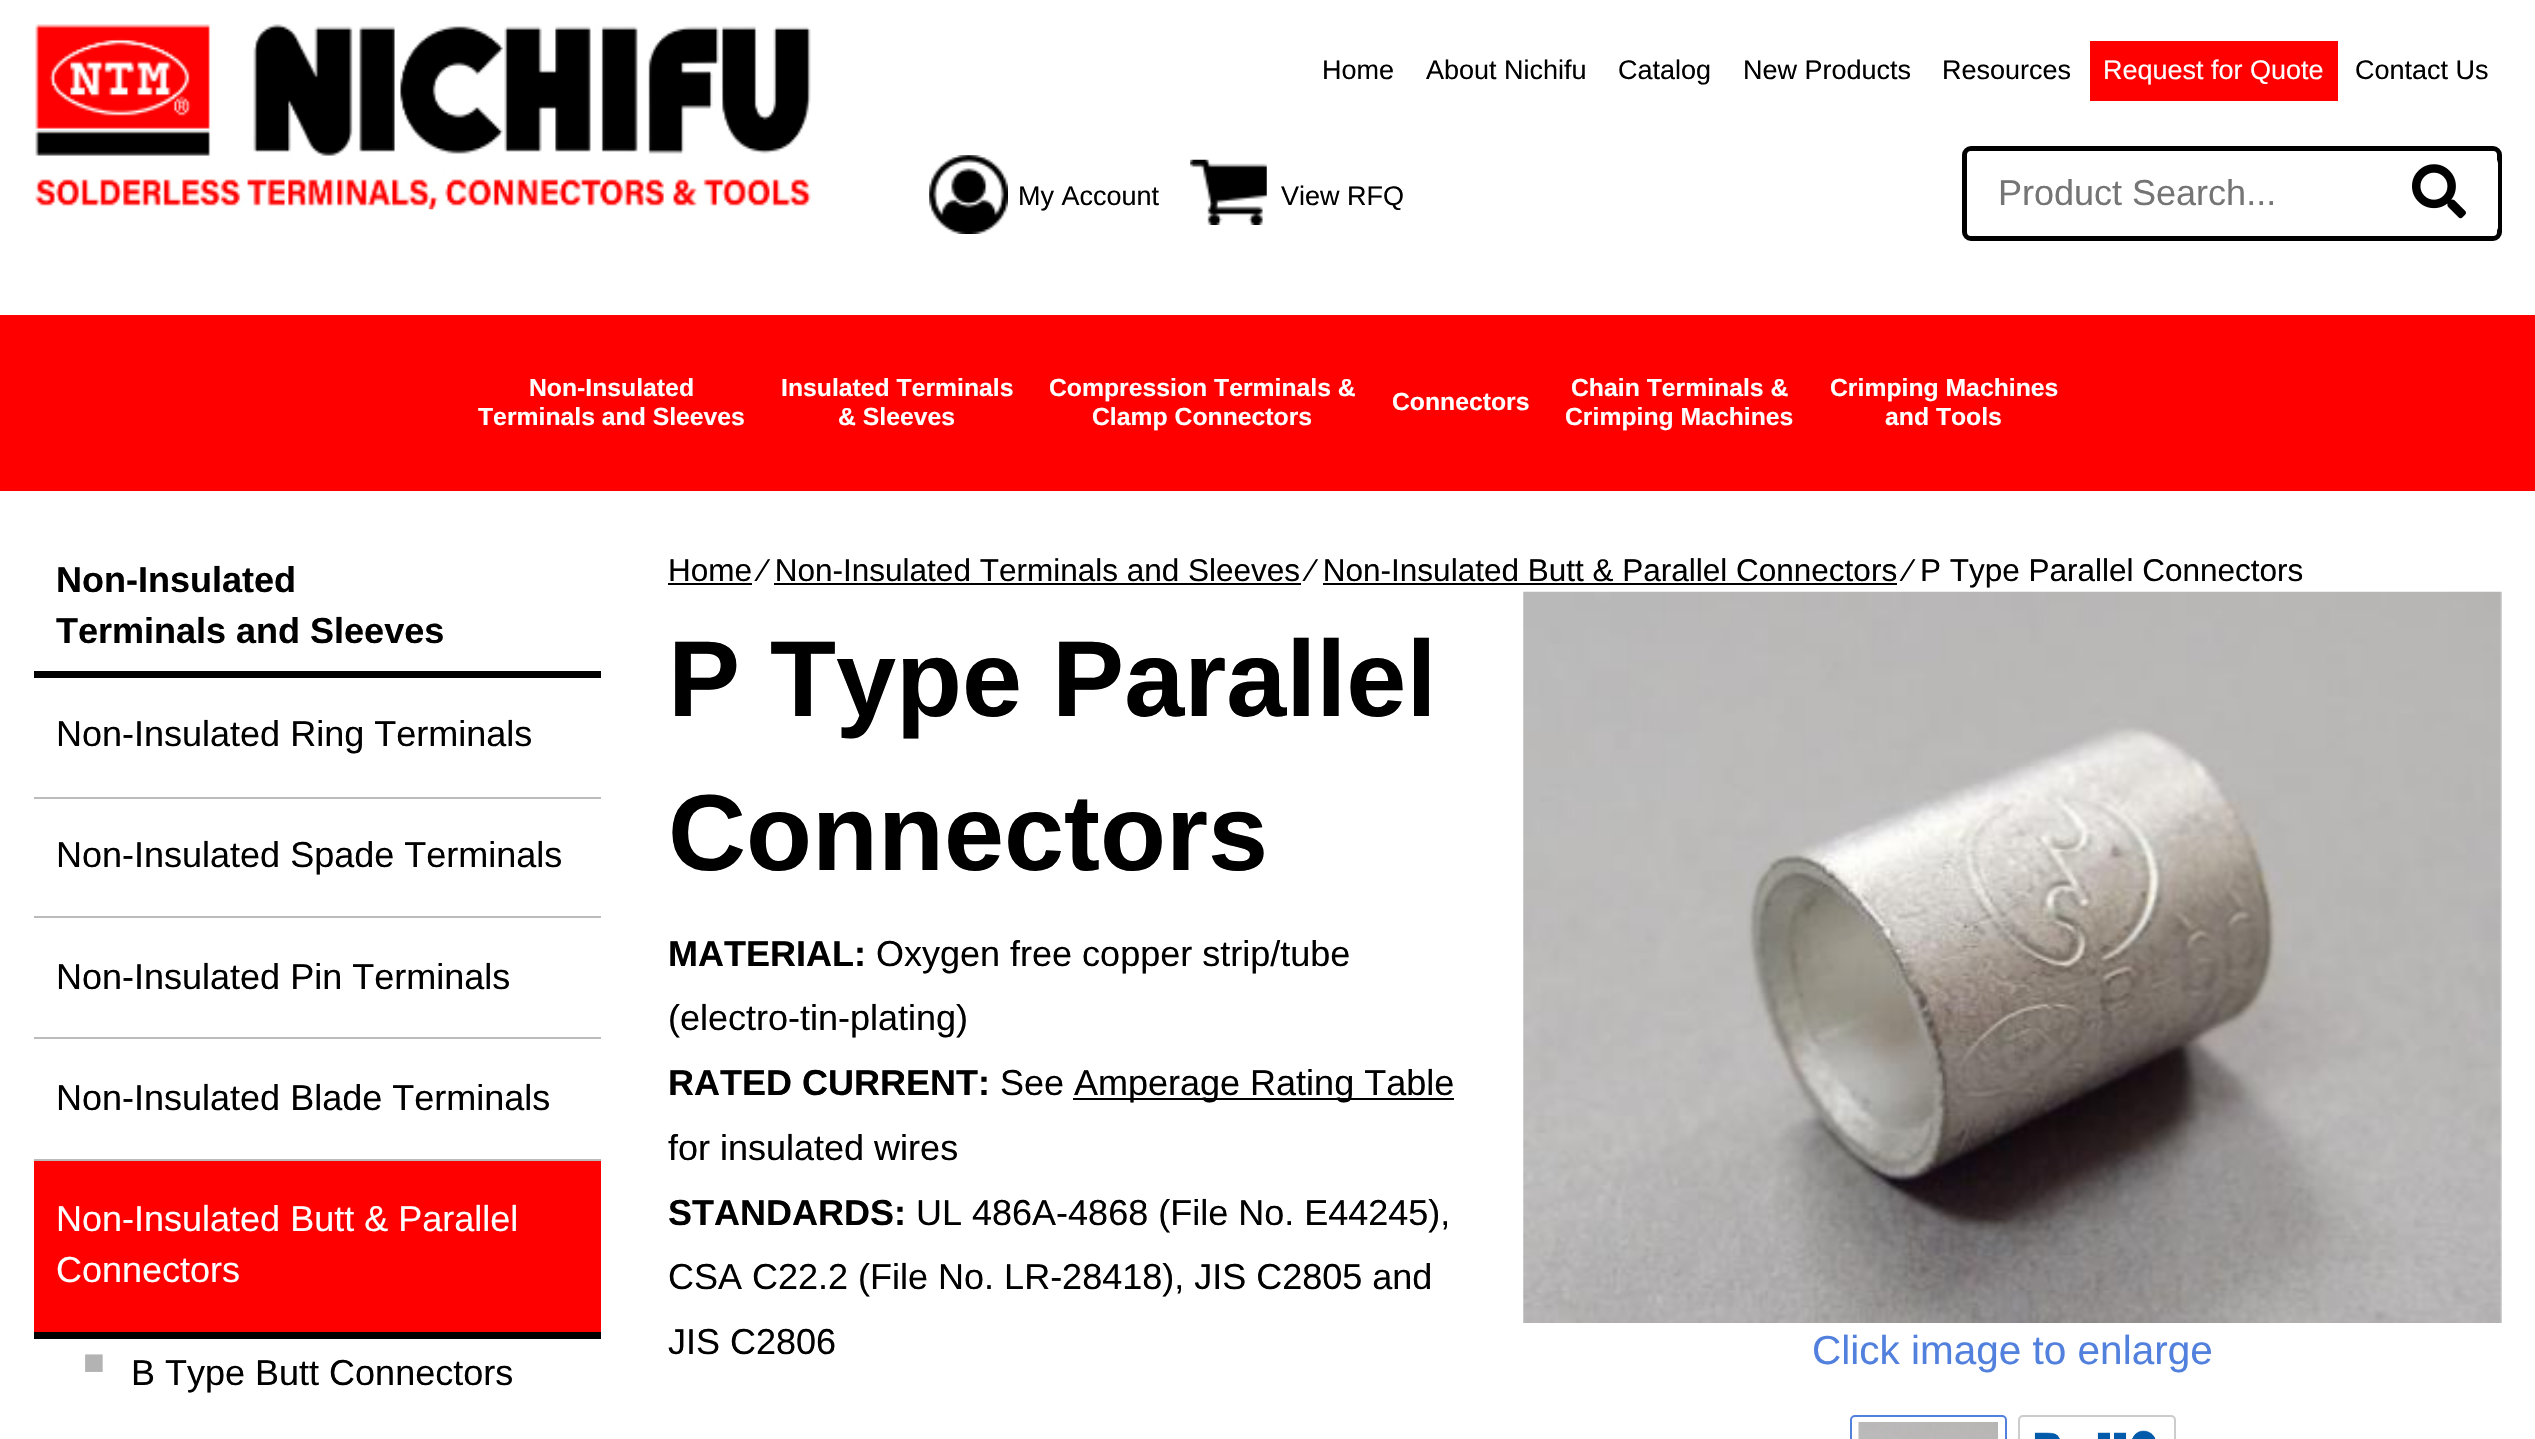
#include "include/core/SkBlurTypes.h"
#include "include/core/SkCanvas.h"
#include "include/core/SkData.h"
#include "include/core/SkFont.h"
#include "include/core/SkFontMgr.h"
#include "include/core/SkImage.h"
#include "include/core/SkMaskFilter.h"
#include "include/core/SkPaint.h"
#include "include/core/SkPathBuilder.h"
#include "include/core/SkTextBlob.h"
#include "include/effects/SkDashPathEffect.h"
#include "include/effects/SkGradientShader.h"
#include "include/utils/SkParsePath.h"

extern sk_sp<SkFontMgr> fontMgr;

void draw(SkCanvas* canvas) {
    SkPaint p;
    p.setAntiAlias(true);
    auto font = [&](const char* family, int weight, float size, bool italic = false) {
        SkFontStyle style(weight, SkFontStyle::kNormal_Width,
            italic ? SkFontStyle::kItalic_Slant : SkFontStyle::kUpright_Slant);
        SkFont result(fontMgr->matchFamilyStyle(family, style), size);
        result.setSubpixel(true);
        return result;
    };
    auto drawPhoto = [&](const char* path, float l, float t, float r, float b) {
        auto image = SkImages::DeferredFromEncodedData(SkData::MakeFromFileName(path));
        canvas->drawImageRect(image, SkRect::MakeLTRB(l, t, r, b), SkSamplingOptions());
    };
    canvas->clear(0xFFFFFFFF);
    drawPhoto("media/1.png", 35, 24, 811, 210);
    auto font1 = font("Liberation Sans", 400, 27);
    p.setColor(0xFF000000);
    {
        const struct { const char* s; float x, y; } items[] = {
            {"Home", 1322, 79},
            {"About Nichifu", 1426, 79},
            {"Catalog", 1618, 79},
            {"New Products", 1743, 79},
            {"Resources", 1942, 79},
        };
        for (auto [s, x, y] : items) {
            canvas->drawString(s, x, y, font1, p);
        }
    }
    p.setColor(0xFFFF0000);
    canvas->drawRect(SkRect::MakeLTRB(2090, 41, 2338, 101), p);
    p.setColor(0xFFFFFFFF);
    canvas->drawString("Request for Quote", 2103, 79, font1, p);
    p.setColor(0xFF000000);
    canvas->drawString("Contact Us", 2355, 79, font1, p);
    drawPhoto("media/2.png", 929, 155, 1008, 234);
    canvas->drawString("My Account", 1018, 205, font1, p);
    drawPhoto("media/3.png", 1190, 159, 1267, 225);
    canvas->drawString("View RFQ", 1281, 205, font1, p);
    p.setStyle(SkPaint::kStroke_Style);
    p.setStrokeWidth(5);
    canvas->drawRoundRect(SkRect::MakeLTRB(1964.5f, 148.5f, 2499.5f, 238.5f), 6.5f, 6.5f, p);
    auto font2 = font("Liberation Sans", 400, 36);
    p.setStyle(SkPaint::kFill_Style);
    p.setColor(0xFF757575);
    canvas->drawString("Product Search...", 1998, 205, font2, p);
    p.setColor(0xFFFFFFFF);
    canvas->drawPath(SkPathBuilder().moveTo(2381, 155).lineTo(2489, 155).cubicTo(2494, 155, 2498, 159, 2498, 164).lineTo(2498, 227).cubicTo(2498, 230, 2496, 232, 2493, 232).lineTo(2381, 232).close().detach(), p);
    drawPhoto("media/4.png", 2412, 164, 2466, 219);
    p.setColor(0xFFFF0000);
    canvas->drawRect(SkRect::MakeLTRB(0, 315, 2535, 491), p);
    auto font3 = font("Liberation Sans", 700, 24.75f);
    p.setColor(0xFFFFFFFF);
    {
        const struct { const char* s; float x, y; } items[] = {
            {"Non-Insulated", 529, 396},
            {"Terminals and Sleeves", 478, 425},
            {"Insulated Terminals", 781, 396},
            {"& Sleeves", 838, 425},
            {"Compression Terminals &", 1049, 396},
            {"Clamp Connectors", 1092, 425},
            {"Connectors", 1392, 410},
            {"Chain Terminals &", 1571, 396},
            {"Crimping Machines", 1565, 425},
            {"Crimping Machines", 1830, 396},
            {"and Tools", 1885, 425},
        };
        for (auto [s, x, y] : items) {
            canvas->drawString(s, x, y, font3, p);
        }
    }
    p.setColor(0xFF000000);
    canvas->drawRect(SkRect::MakeLTRB(34, 671, 601, 678), p);
    auto font4 = font("Liberation Sans", 700, 36);
    canvas->drawString("Non-Insulated", 56, 592, font4, p);
    canvas->drawString("Terminals and Sleeves", 56, 643, font4, p);
    p.setColor(0xFFBBBBBB);
    canvas->drawRect(SkRect::MakeLTRB(34, 797, 601, 799), p);
    p.setColor(0xFF000000);
    canvas->drawString("Non-Insulated Ring Terminals", 56, 746, font2, p);
    p.setColor(0xFFBBBBBB);
    canvas->drawRect(SkRect::MakeLTRB(34, 916, 601, 918), p);
    p.setColor(0xFF000000);
    canvas->drawString("Non-Insulated Spade Terminals", 56, 867, font2, p);
    p.setColor(0xFFBBBBBB);
    canvas->drawRect(SkRect::MakeLTRB(34, 1037, 601, 1039), p);
    p.setColor(0xFF000000);
    canvas->drawString("Non-Insulated Pin Terminals", 56, 989, font2, p);
    p.setColor(0xFFBBBBBB);
    canvas->drawRect(SkRect::MakeLTRB(34, 1159, 601, 1161), p);
    p.setColor(0xFF000000);
    canvas->drawString("Non-Insulated Blade Terminals", 56, 1110, font2, p);
    p.setColor(0xFFFF0000);
    canvas->drawRect(SkRect::MakeLTRB(34, 1161, 601, 1332), p);
    p.setColor(0xFF000000);
    canvas->drawRect(SkRect::MakeLTRB(34, 1332, 601, 1339), p);
    p.setColor(0xFFFFFFFF);
    canvas->drawString("Non-Insulated Butt & Parallel", 56, 1231, font2, p);
    canvas->drawString("Connectors", 56, 1282, font2, p);
    p.setColor(0xFFB3B3B3);
    canvas->drawString("■", 83, 1374, font4, p);
    p.setColor(0xFF000000);
    canvas->drawString("B Type Butt Connectors", 131, 1385, font2, p);
    canvas->drawRect(SkRect::MakeLTRB(668, 583, 752, 585), p);
    auto font5 = font("Liberation Sans", 400, 31.5f);
    canvas->drawString("Home ∕ Non-Insulated Terminals and Sleeves ∕ Non-Insulated Butt & Parallel Connectors ∕ P Type Parallel Connectors", 668, 581, font5, p);
    canvas->drawRect(SkRect::MakeLTRB(774, 583, 1301, 585), p);
    canvas->drawRect(SkRect::MakeLTRB(1323, 583, 1897, 585), p);
    auto font6 = font("Liberation Sans", 700, 108);
    canvas->drawString("P Type Parallel", 668, 716, font6, p);
    canvas->drawString("Connectors", 668, 870, font6, p);
    canvas->drawString("MATERIAL:", 668, 966, font4, p);
    canvas->drawString("Oxygen free copper strip/tube", 876, 966, font2, p);
    canvas->drawString("(electro-tin-plating)", 668, 1030, font2, p);
    canvas->drawString("RATED CURRENT:", 668, 1095, font4, p);
    canvas->drawString("See", 1000, 1095, font2, p);
    canvas->drawRect(SkRect::MakeLTRB(1073, 1098, 1454, 1100), p);
    canvas->drawString("Amperage Rating Table", 1074, 1095, font2, p);
    canvas->drawString("for insulated wires", 668, 1160, font2, p);
    canvas->drawString("STANDARDS:", 668, 1225, font4, p);
    {
        const struct { const char* s; float x, y; } items[] = {
            {"UL 486A-4868 (File No. E44245),", 916, 1225},
            {"CSA C22.2 (File No. LR-28418), JIS C2805 and", 668, 1289},
            {"JIS C2806", 668, 1354},
        };
        for (auto [s, x, y] : items) {
            canvas->drawString(s, x, y, font2, p);
        }
    }
    drawPhoto("media/5.png", 1523, 591, 2502, 1323);
    auto font7 = font("Liberation Sans", 400, 40.5f);
    p.setColor(0xFF5280DD);
    canvas->drawString("Click image to enlarge", 1812, 1364, font7, p);
    p.setStyle(SkPaint::kStroke_Style);
    p.setStrokeWidth(2);
    canvas->drawRoundRect(SkRect::MakeLTRB(1851, 1416, 2006, 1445), 4, 4, p);
    drawPhoto("media/6.png", 1858, 1422, 1998, 1439);
    p.setColor(0xFFCCCCCC);
    canvas->drawRoundRect(SkRect::MakeLTRB(2019, 1416, 2175, 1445), 4, 4, p);
    drawPhoto("media/7.png", 2034, 1430, 2156, 1439);
}
